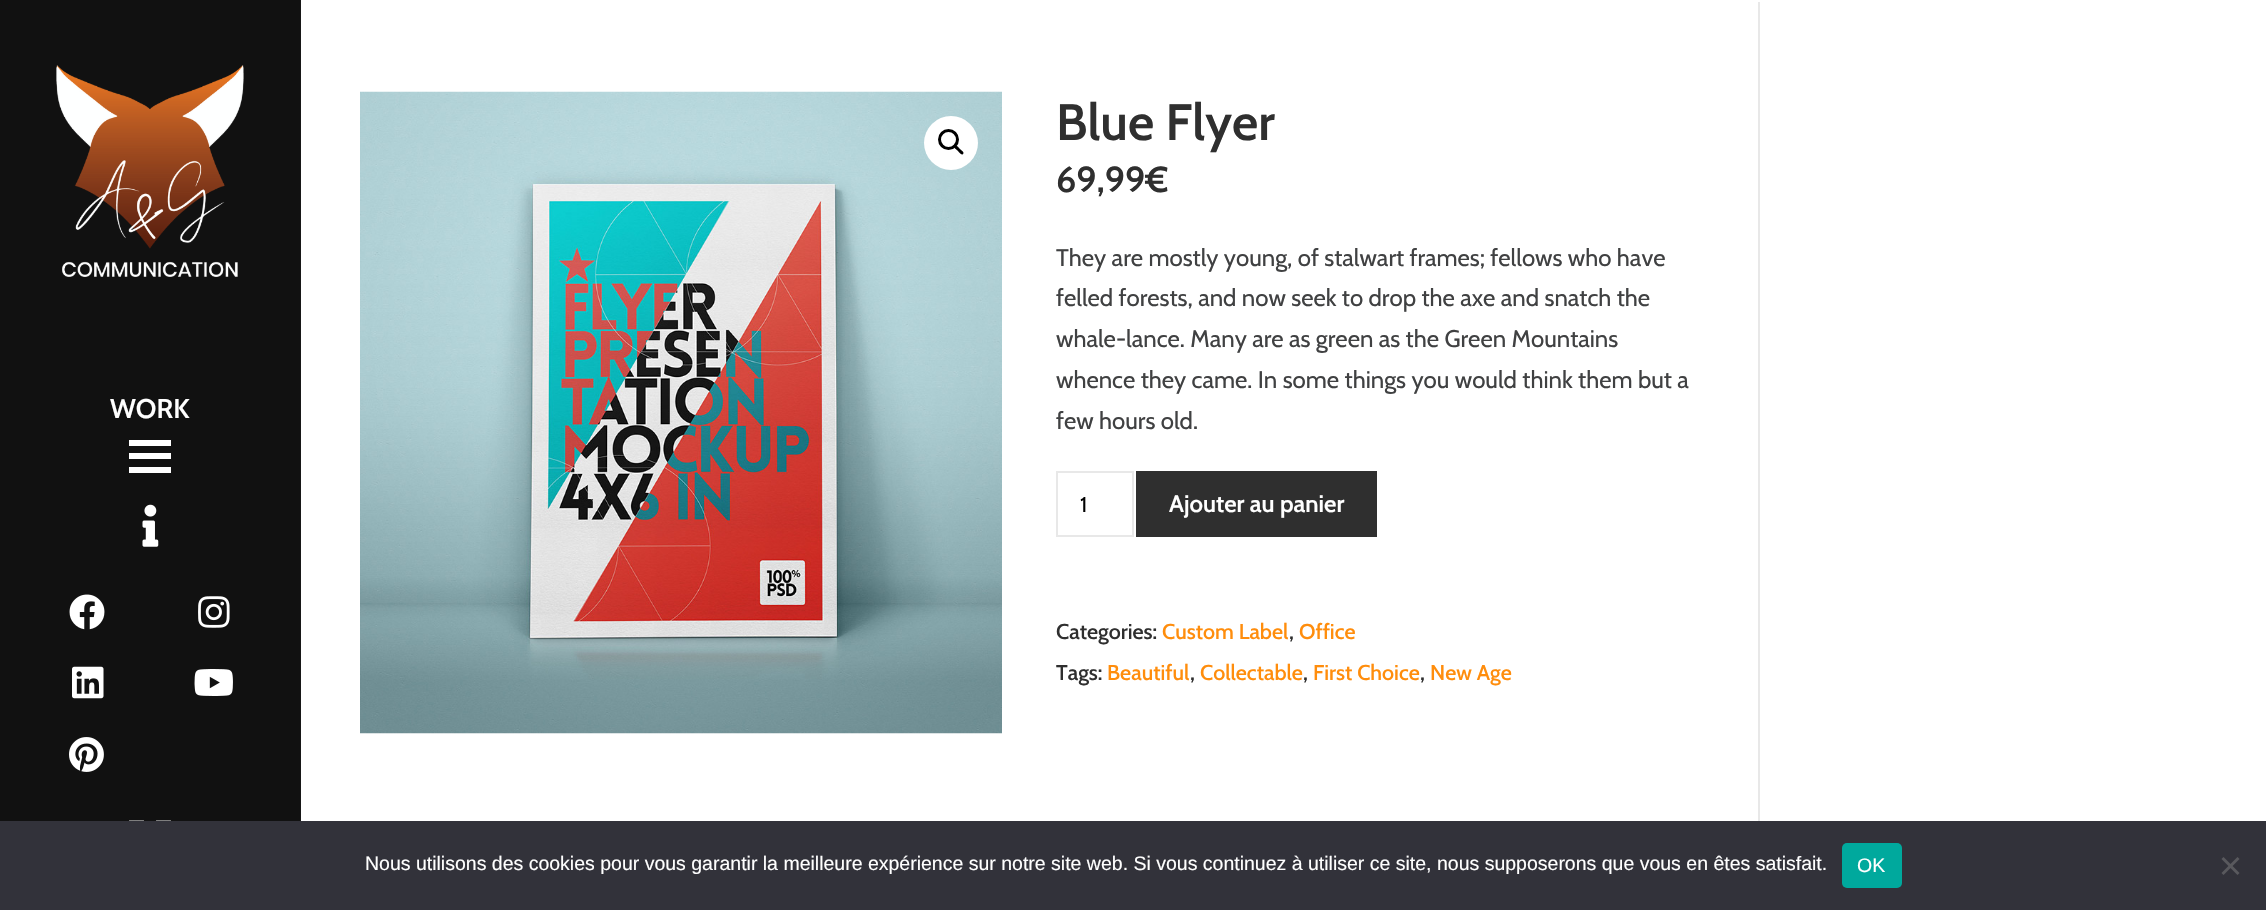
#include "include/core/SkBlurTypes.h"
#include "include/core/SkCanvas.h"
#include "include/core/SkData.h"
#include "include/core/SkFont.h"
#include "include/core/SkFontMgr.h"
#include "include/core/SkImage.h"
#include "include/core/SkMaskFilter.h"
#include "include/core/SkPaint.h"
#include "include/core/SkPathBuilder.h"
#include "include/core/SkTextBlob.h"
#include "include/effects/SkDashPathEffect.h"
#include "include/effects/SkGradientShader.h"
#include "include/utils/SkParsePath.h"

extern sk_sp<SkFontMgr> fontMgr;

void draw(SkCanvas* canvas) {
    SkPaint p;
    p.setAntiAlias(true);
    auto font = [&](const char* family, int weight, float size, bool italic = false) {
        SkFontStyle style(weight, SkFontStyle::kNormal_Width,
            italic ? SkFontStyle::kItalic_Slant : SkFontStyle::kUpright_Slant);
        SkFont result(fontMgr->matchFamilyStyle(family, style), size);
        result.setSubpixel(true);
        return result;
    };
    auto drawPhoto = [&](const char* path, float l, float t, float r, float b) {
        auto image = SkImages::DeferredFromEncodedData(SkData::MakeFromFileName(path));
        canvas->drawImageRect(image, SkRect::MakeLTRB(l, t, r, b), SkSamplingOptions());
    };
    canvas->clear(0xFFFFFFFF);
    p.setColor(0xFF111111);
    canvas->drawRect(SkRect::MakeLTRB(0, 0, 300, 821), p);
    drawPhoto("media/1.png", 56, 65, 244, 277);
    auto font1 = font("Cabin", 600, 27);
    p.setColor(0xFFFFFFFF);
    canvas->drawString("WORK", 110, 418, font1, p);
    {
        const struct { float l, t, r, b; SkColor color; } items[] = {
            {129, 440, 171, 446, 0xFFFFFFFF},
            {129, 453, 171, 459, 0xFFFFFFFF},
            {129, 467, 171, 473, 0xFFFFFFFF},
        };
        for (auto [l, t, r, b, color] : items) {
            p.setColor(color);
            canvas->drawRect(SkRect::MakeLTRB(l, t, r, b), p);
        }
    }
    drawPhoto("media/2.png", 142, 504, 159, 547);
    drawPhoto("media/3.png", 69, 594, 105, 630);
    drawPhoto("media/4.png", 198, 596, 230, 628);
    drawPhoto("media/5.png", 72, 666, 104, 699);
    drawPhoto("media/6.png", 194, 669, 233, 696);
    drawPhoto("media/7.png", 69, 737, 104, 772);
    drawPhoto("media/8.png", 129, 820, 171, 821);
    p.setColor(0xFF171717);
    canvas->drawRect(SkRect::MakeLTRB(300, 0, 301, 821), p);
    p.setColor(0xFFE8E8E8);
    canvas->drawRect(SkRect::MakeLTRB(1758, 2, 1760, 821), p);
    drawPhoto("media/9.png", 360, 91, 1002, 734);
    p.setColor(0xFFFFFFFF);
    canvas->drawCircle(951, 143, 27, p);
    p.setStyle(SkPaint::kStroke_Style);
    p.setStrokeWidth(3);
    p.setColor(0xFF000000);
    canvas->drawCircle(948.5f, 139.5f, 9, p);
    p.setStyle(SkPaint::kFill_Style);
    canvas->drawPath(SkPathBuilder().moveTo(954.5f, 146).cubicTo(956.5f, 144, 959, 148, 960, 149).cubicTo(961, 150, 965, 152.5f, 963, 154).cubicTo(961.5f, 156, 959, 152, 958, 151).cubicTo(957, 150, 953, 147.5f, 954.5f, 146).close().detach(), p);
    auto font2 = font("Cabin", 600, 51);
    p.setColor(0xFF2F2F2F);
    canvas->drawString("Blue Flyer", 1056, 140, font2, p);
    auto font3 = font("Cabin", 600, 36);
    canvas->drawString("69,99€", 1056, 192, font3, p);
    auto font4 = font("Cabin", 400, 24);
    p.setColor(0xFF404142);
    {
        const struct { const char* s; float x, y; } items[] = {
            {"They are mostly young, of stalwart frames; fellows who have", 1056, 266},
            {"felled forests, and now seek to drop the axe and snatch the", 1056, 306},
            {"whale-lance. Many are as green as the Green Mountains", 1056, 347},
            {"whence they came. In some things you would think them but a", 1056, 388},
            {"few hours old.", 1056, 429},
        };
        for (auto [s, x, y] : items) {
            canvas->drawString(s, x, y, font4, p);
        }
    }
    p.setStyle(SkPaint::kStroke_Style);
    p.setStrokeWidth(2);
    p.setColor(0xFFE8E8E8);
    canvas->drawRect(SkRect::MakeLTRB(1057, 472, 1133, 536), p);
    auto font5 = font("Cabin", 400, 21.5f);
    p.setStyle(SkPaint::kFill_Style);
    p.setColor(0xFF000000);
    canvas->drawString("1", 1080, 512, font5, p);
    p.setColor(0xFF2F2F2F);
    canvas->drawRect(SkRect::MakeLTRB(1136, 471, 1377, 537), p);
    auto font6 = font("Cabin", 600, 24);
    p.setColor(0xFFFFFFFF);
    canvas->drawString("Ajouter au panier", 1169, 512, font6, p);
    auto font7 = font("Cabin", 500, 21.5f);
    p.setColor(0xFF2F2F2F);
    canvas->drawString("Categories:", 1056, 639, font7, p);
    p.setColor(0xFFFF8D0C);
    canvas->drawString("Custom Label", 1162, 639, font7, p);
    p.setColor(0xFF2F2F2F);
    canvas->drawString(",", 1289, 639, font7, p);
    p.setColor(0xFFFF8D0C);
    canvas->drawString("Office", 1299, 639, font7, p);
    p.setColor(0xFF2F2F2F);
    canvas->drawString("Tags:", 1056, 680, font7, p);
    p.setColor(0xFFFF8D0C);
    canvas->drawString("Beautiful", 1107, 680, font7, p);
    p.setColor(0xFF2F2F2F);
    canvas->drawString(",", 1190, 680, font7, p);
    p.setColor(0xFFFF8D0C);
    canvas->drawString("Collectable", 1200, 680, font7, p);
    p.setColor(0xFF2F2F2F);
    canvas->drawString(",", 1303, 680, font7, p);
    p.setColor(0xFFFF8D0C);
    canvas->drawString("First Choice", 1313, 680, font7, p);
    p.setColor(0xFF2F2F2F);
    canvas->drawString(",", 1420, 680, font7, p);
    p.setColor(0xFFFF8D0C);
    canvas->drawString("New Age", 1430, 680, font7, p);
    p.setColor(0xFF32323A);
    canvas->drawRect(SkRect::MakeLTRB(0, 821, 2266, 910), p);
    auto font8 = font("Liberation Sans", 400, 19.5f);
    p.setColor(0xFFFFFFFF);
    canvas->drawString("Nous utilisons des cookies pour vous garantir la meilleure expérience sur notre site web. Si vous continuez à utiliser ce site, nous supposerons que vous en êtes satisfait.", 365, 870, font8, p);
    p.setColor(0xFF00A99D);
    canvas->drawRoundRect(SkRect::MakeLTRB(1842, 843, 1902, 888), 5, 5, p);
    p.setColor(0xFFFFFFFF);
    canvas->drawString("OK", 1857, 872, font8, p);
    p.setColor(0xFF59595D);
    canvas->drawPath(SkPathBuilder().moveTo(2237.5f, 857).lineTo(2239.5f, 859).lineTo(2223.5f, 875).lineTo(2221.5f, 873).close().detach(), p);
    canvas->drawPath(SkPathBuilder().moveTo(2221.5f, 859).lineTo(2223.5f, 857).lineTo(2239.5f, 873).lineTo(2237.5f, 875).close().detach(), p);
}
